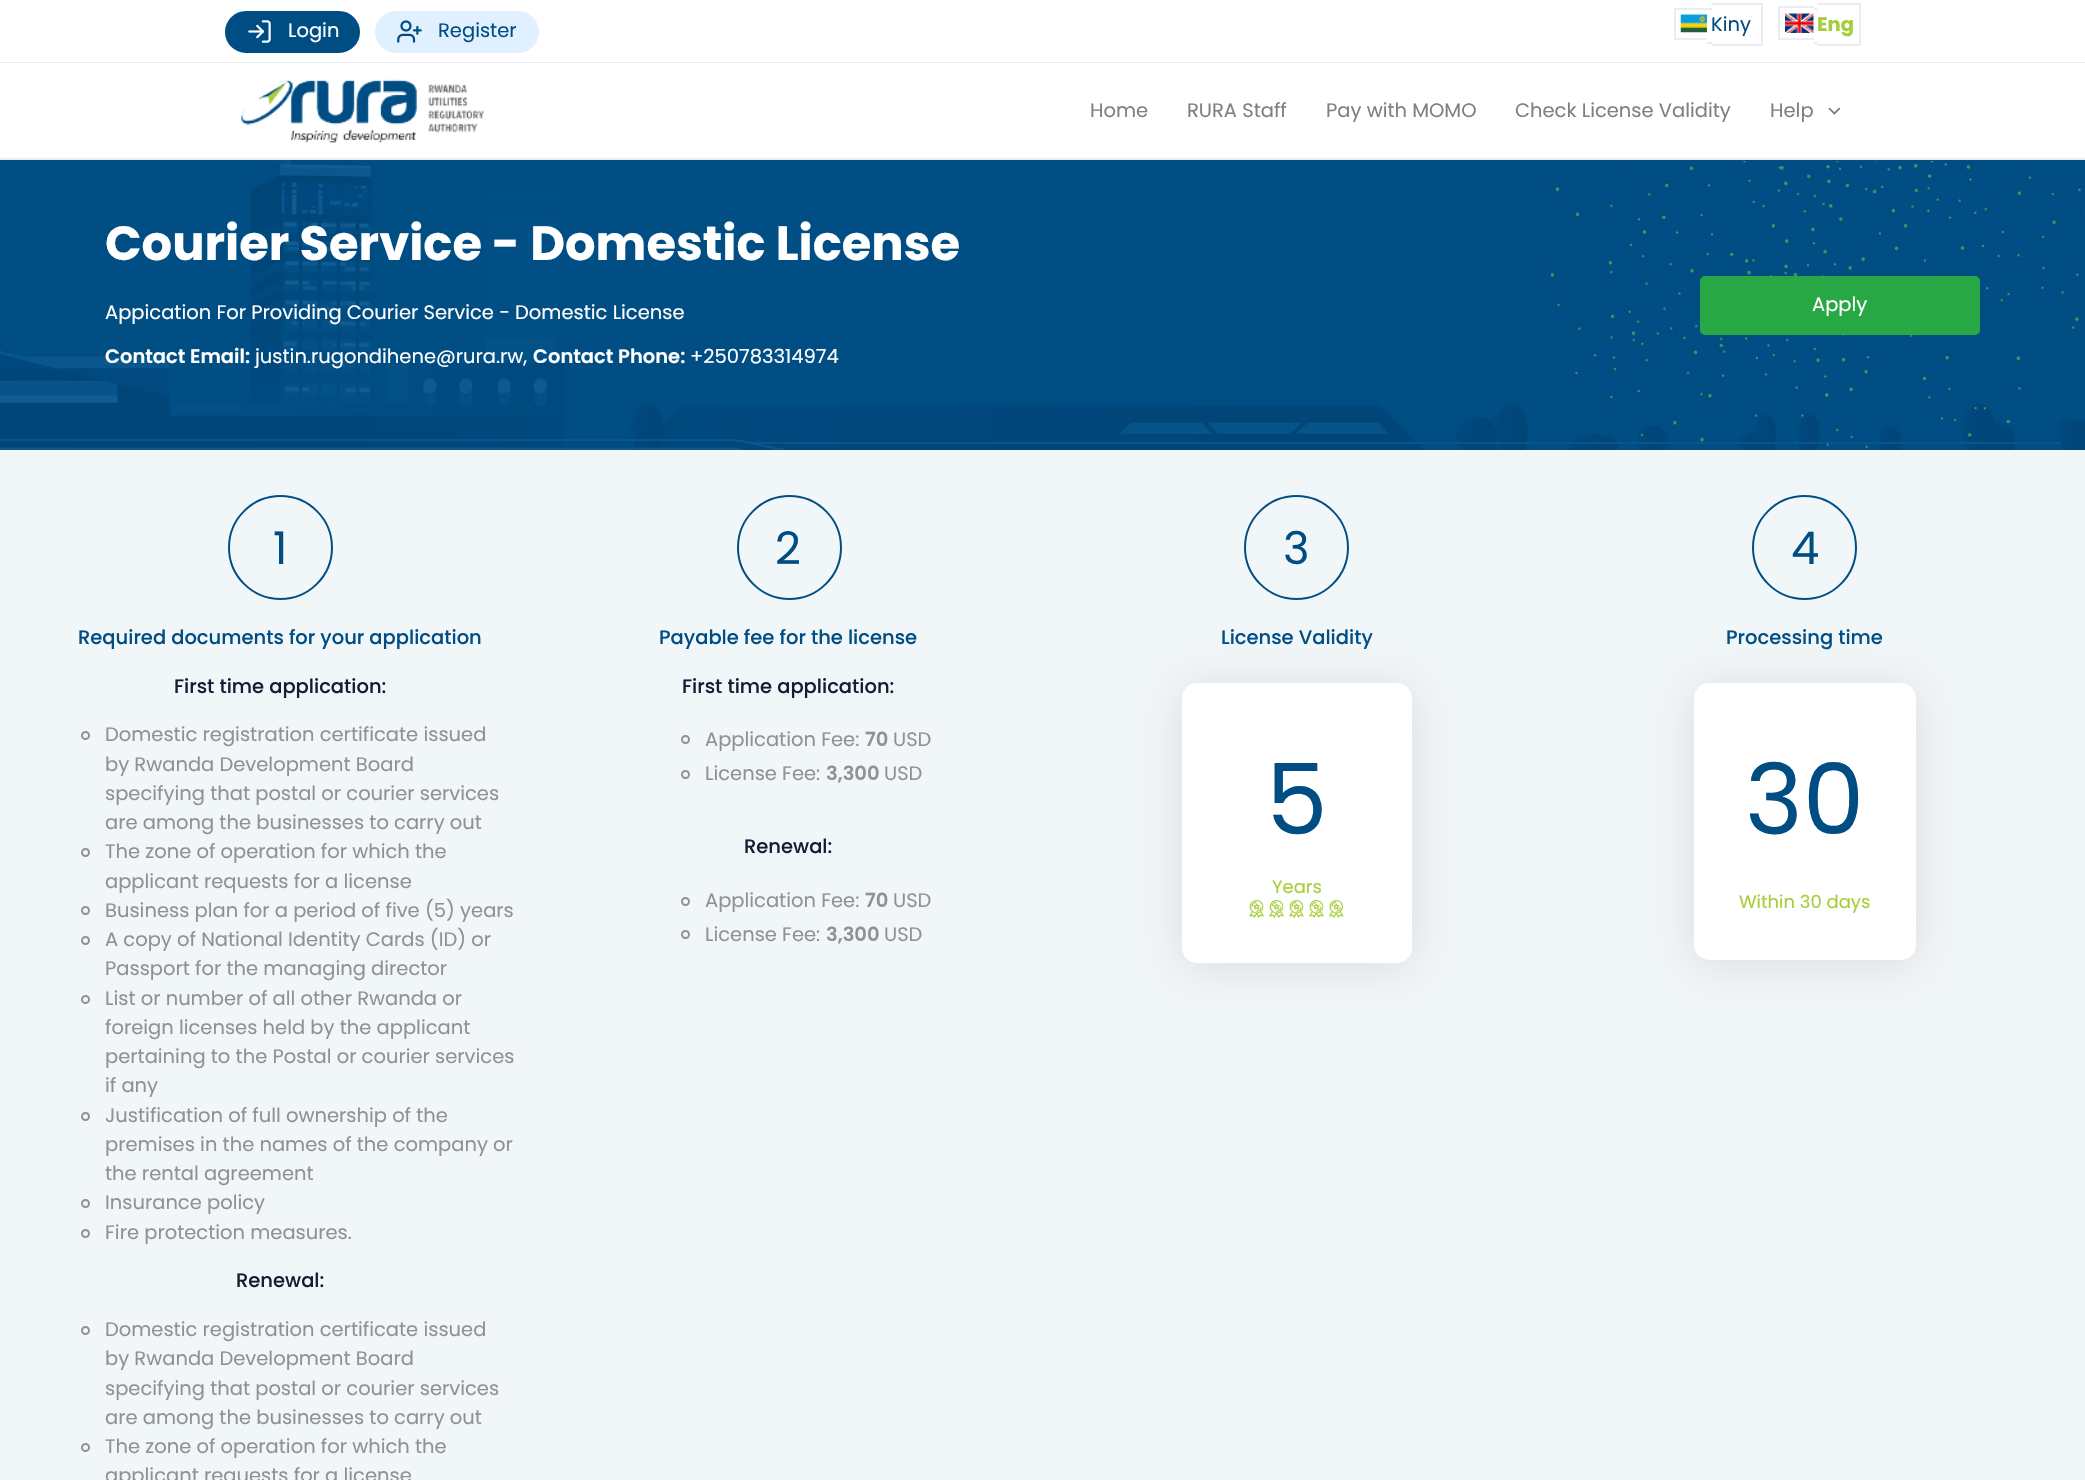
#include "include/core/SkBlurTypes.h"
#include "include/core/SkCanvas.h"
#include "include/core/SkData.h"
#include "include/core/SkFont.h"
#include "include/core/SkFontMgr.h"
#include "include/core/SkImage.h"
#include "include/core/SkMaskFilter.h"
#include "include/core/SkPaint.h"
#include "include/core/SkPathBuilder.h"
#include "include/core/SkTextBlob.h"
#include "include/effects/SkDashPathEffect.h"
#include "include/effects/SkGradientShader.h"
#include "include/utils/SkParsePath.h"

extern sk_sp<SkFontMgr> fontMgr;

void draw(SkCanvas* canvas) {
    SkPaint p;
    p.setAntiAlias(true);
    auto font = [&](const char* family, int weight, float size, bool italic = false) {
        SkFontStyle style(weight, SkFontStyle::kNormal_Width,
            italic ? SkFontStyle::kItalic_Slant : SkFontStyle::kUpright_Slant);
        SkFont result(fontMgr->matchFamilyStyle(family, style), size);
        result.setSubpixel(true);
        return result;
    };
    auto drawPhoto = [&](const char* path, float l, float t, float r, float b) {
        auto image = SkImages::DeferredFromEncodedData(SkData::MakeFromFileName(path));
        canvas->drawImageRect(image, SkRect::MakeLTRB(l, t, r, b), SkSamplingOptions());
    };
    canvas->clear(0xFFFFFFFF);
    p.setColor(0xFFEBEDF3);
    canvas->drawRect(SkRect::MakeLTRB(0, 62, 2085, 63), p);
    p.setColor(0xFF004D84);
    canvas->drawRoundRect(SkRect::MakeLTRB(226, 12, 359, 52), 20, 20, p);
    p.setStyle(SkPaint::kStroke_Style);
    p.setStrokeWidth(2);
    canvas->drawRoundRect(SkRect::MakeLTRB(226, 12, 359, 52), 20, 20, p);
    drawPhoto("media/1.png", 248, 20, 271, 43);
    auto font1 = font("Poppins", 400, 19.5f);
    p.setStyle(SkPaint::kFill_Style);
    p.setColor(0xFFFFFFFF);
    canvas->drawString("Login", 288, 37, font1, p);
    p.setColor(0xFFE1F0FF);
    canvas->drawRoundRect(SkRect::MakeLTRB(375, 11, 539, 53), 21, 21, p);
    drawPhoto("media/2.png", 397, 20, 422, 43);
    p.setColor(0xFF004D84);
    canvas->drawString("Register", 438, 37, font1, p);
    drawPhoto("media/3.png", 1680, 13, 1707, 33);
    canvas->drawString("Kiny", 1711, 31, font1, p);
    {
        const struct { float l, t, r, b; SkColor color; } items[] = {
            {1674, 8, 1712, 10, 0xFFEBEDF3},
            {1674, 38, 1707, 40, 0xFFEBEDF3},
            {1674, 8, 1676, 39, 0xFFEBEDF3},
            {1707, 42, 1712, 44, 0xFFEBEDF3},
            {1712, 3, 1763, 5, 0xFFEBEDF3},
            {1761, 3, 1763, 45, 0xFFEBEDF3},
            {1712, 44, 1763, 46, 0xFFEBEDF3},
        };
        for (auto [l, t, r, b, color] : items) {
            p.setColor(color);
            canvas->drawRect(SkRect::MakeLTRB(l, t, r, b), p);
        }
    }
    drawPhoto("media/4.png", 1785, 13, 1814, 33);
    auto font2 = font("Poppins", 700, 19.5f);
    p.setColor(0xFFA6CE3A);
    canvas->drawString("Eng", 1817, 31, font2, p);
    {
        const struct { float l, t, r, b; SkColor color; } items[] = {
            {1778, 6, 1814, 8, 0xFFEBEDF3},
            {1778, 38, 1814, 40, 0xFFEBEDF3},
            {1778, 6, 1780, 39, 0xFFEBEDF3},
            {1814, 8, 1817, 10, 0xFFEBEDF3},
            {1814, 42, 1817, 44, 0xFFEBEDF3},
            {1817, 3, 1860, 5, 0xFFEBEDF3},
            {1859, 3, 1861, 45, 0xFFEBEDF3},
            {1817, 44, 1860, 46, 0xFFEBEDF3},
            {0, 158, 2085, 160, 0xFFEBEDF3},
        };
        for (auto [l, t, r, b, color] : items) {
            p.setColor(color);
            canvas->drawRect(SkRect::MakeLTRB(l, t, r, b), p);
        }
    }
    drawPhoto("media/5.png", 241, 79, 484, 143);
    p.setColor(0xFF808080);
    {
        const struct { const char* s; float x, y; } items[] = {
            {"Home", 1090, 117},
            {"RURA Staff", 1187, 117},
            {"Pay with MOMO", 1326, 117},
            {"Check License Validity", 1515, 117},
            {"Help", 1770, 117},
        };
        for (auto [s, x, y] : items) {
            canvas->drawString(s, x, y, font1, p);
        }
    }
    drawPhoto("media/6.png", 1828, 107, 1841, 115);
    drawPhoto("media/7.png", 0, 160, 2085, 450);
    auto font3 = font("Poppins", 700, 48);
    p.setColor(0xFFFFFFFF);
    canvas->drawString("Courier Service - Domestic License", 105, 260, font3, p);
    canvas->drawString("Appication For Providing Courier Service - Domestic License", 105, 319, font1, p);
    auto font4 = font("Poppins", 600, 19.5f);
    canvas->drawString("Contact Email:", 105, 363, font4, p);
    canvas->drawString("justin.rugondihene@rura.rw,", 255, 363, font1, p);
    canvas->drawString("Contact Phone:", 533, 363, font4, p);
    canvas->drawString("+250783314974", 690, 363, font1, p);
    p.setColor(0xFF28A745);
    canvas->drawRoundRect(SkRect::MakeLTRB(1701, 277, 1979, 334), 4, 4, p);
    p.setStyle(SkPaint::kStroke_Style);
    canvas->drawRoundRect(SkRect::MakeLTRB(1701, 277, 1979, 334), 4, 4, p);
    p.setStyle(SkPaint::kFill_Style);
    p.setColor(0xFFFFFFFF);
    canvas->drawString("Apply", 1812, 311, font1, p);
    p.setColor(0xFFF1F6F9);
    canvas->drawRect(SkRect::MakeLTRB(0, 450, 2085, 1480), p);
    p.setStyle(SkPaint::kStroke_Style);
    p.setColor(0xFF014E84);
    canvas->drawCircle(280.5f, 547.5f, 51.5f, p);
    auto font5 = font("Poppins", 400, 45);
    p.setStyle(SkPaint::kFill_Style);
    p.setColor(0xFF004D84);
    canvas->drawString("1", 273, 564, font5, p);
    auto font6 = font("Poppins", 500, 19.5f);
    canvas->drawString("Required documents for your application", 78, 644, font6, p);
    p.setColor(0xFF181C32);
    canvas->drawString("First time application:", 174, 693, font6, p);
    p.setStyle(SkPaint::kStroke_Style);
    p.setColor(0xFF919191);
    canvas->drawCircle(85.5f, 735.5f, 3.5f, p);
    p.setStyle(SkPaint::kFill_Style);
    {
        const struct { const char* s; float x, y; } items[] = {
            {"Domestic registration certificate issued", 105, 741},
            {"by Rwanda Development Board", 105, 771},
            {"specifying that postal or courier services", 105, 800},
            {"are among the businesses to carry out", 105, 829},
        };
        for (auto [s, x, y] : items) {
            canvas->drawString(s, x, y, font1, p);
        }
    }
    p.setStyle(SkPaint::kStroke_Style);
    canvas->drawCircle(85.5f, 852.5f, 3.5f, p);
    p.setStyle(SkPaint::kFill_Style);
    canvas->drawString("The zone of operation for which the", 105, 858, font1, p);
    canvas->drawString("applicant requests for a license", 105, 888, font1, p);
    p.setStyle(SkPaint::kStroke_Style);
    canvas->drawCircle(85.5f, 910.5f, 3.5f, p);
    p.setStyle(SkPaint::kFill_Style);
    canvas->drawString("Business plan for a period of five (5) years", 105, 917, font1, p);
    p.setStyle(SkPaint::kStroke_Style);
    canvas->drawCircle(85.5f, 940.5f, 3.5f, p);
    p.setStyle(SkPaint::kFill_Style);
    canvas->drawString("A copy of National Identity Cards (ID) or", 105, 946, font1, p);
    canvas->drawString("Passport for the managing director", 105, 975, font1, p);
    p.setStyle(SkPaint::kStroke_Style);
    canvas->drawCircle(85.5f, 999.5f, 3.5f, p);
    p.setStyle(SkPaint::kFill_Style);
    {
        const struct { const char* s; float x, y; } items[] = {
            {"List or number of all other Rwanda or", 105, 1005},
            {"foreign licenses held by the applicant", 105, 1034},
            {"pertaining to the Postal or courier services", 105, 1063},
            {"if any", 105, 1092},
        };
        for (auto [s, x, y] : items) {
            canvas->drawString(s, x, y, font1, p);
        }
    }
    p.setStyle(SkPaint::kStroke_Style);
    canvas->drawCircle(85.5f, 1116.5f, 3.5f, p);
    p.setStyle(SkPaint::kFill_Style);
    {
        const struct { const char* s; float x, y; } items[] = {
            {"Justification of full ownership of the", 105, 1122},
            {"premises in the names of the company or", 105, 1151},
            {"the rental agreement", 105, 1180},
        };
        for (auto [s, x, y] : items) {
            canvas->drawString(s, x, y, font1, p);
        }
    }
    p.setStyle(SkPaint::kStroke_Style);
    canvas->drawCircle(85.5f, 1203.5f, 3.5f, p);
    p.setStyle(SkPaint::kFill_Style);
    canvas->drawString("Insurance policy", 105, 1209, font1, p);
    p.setStyle(SkPaint::kStroke_Style);
    canvas->drawCircle(85.5f, 1233.5f, 3.5f, p);
    p.setStyle(SkPaint::kFill_Style);
    canvas->drawString("Fire protection measures.", 105, 1239, font1, p);
    p.setColor(0xFF181C32);
    canvas->drawString("Renewal:", 236, 1287, font6, p);
    p.setStyle(SkPaint::kStroke_Style);
    p.setColor(0xFF919191);
    canvas->drawCircle(85.5f, 1330.5f, 3.5f, p);
    p.setStyle(SkPaint::kFill_Style);
    {
        const struct { const char* s; float x, y; } items[] = {
            {"Domestic registration certificate issued", 105, 1336},
            {"by Rwanda Development Board", 105, 1365},
            {"specifying that postal or courier services", 105, 1395},
            {"are among the businesses to carry out", 105, 1424},
        };
        for (auto [s, x, y] : items) {
            canvas->drawString(s, x, y, font1, p);
        }
    }
    p.setStyle(SkPaint::kStroke_Style);
    canvas->drawCircle(85.5f, 1447.5f, 3.5f, p);
    p.setStyle(SkPaint::kFill_Style);
    canvas->drawString("The zone of operation for which the", 105, 1453, font1, p);
    canvas->drawString("applicant requests for a license", 105, 1482, font1, p);
    p.setStyle(SkPaint::kStroke_Style);
    p.setColor(0xFF014E84);
    canvas->drawCircle(789.5f, 547.5f, 51.5f, p);
    p.setStyle(SkPaint::kFill_Style);
    p.setColor(0xFF004D84);
    canvas->drawString("2", 775, 564, font5, p);
    canvas->drawString("Payable fee for the license", 659, 644, font6, p);
    p.setColor(0xFF181C32);
    canvas->drawString("First time application:", 682, 693, font6, p);
    p.setStyle(SkPaint::kStroke_Style);
    p.setColor(0xFF919191);
    canvas->drawCircle(685.5f, 739.5f, 3.5f, p);
    p.setStyle(SkPaint::kFill_Style);
    canvas->drawString("Application Fee:", 705, 746, font1, p);
    canvas->drawString("70", 865, 746, font4, p);
    canvas->drawString("USD", 893, 746, font1, p);
    p.setStyle(SkPaint::kStroke_Style);
    canvas->drawCircle(685.5f, 774.5f, 3.5f, p);
    p.setStyle(SkPaint::kFill_Style);
    canvas->drawString("License Fee:", 705, 780, font1, p);
    canvas->drawString("3,300", 826, 780, font4, p);
    canvas->drawString("USD", 884, 780, font1, p);
    p.setColor(0xFF181C32);
    canvas->drawString("Renewal:", 744, 853, font6, p);
    p.setStyle(SkPaint::kStroke_Style);
    p.setColor(0xFF919191);
    canvas->drawCircle(685.5f, 901.5f, 3.5f, p);
    p.setStyle(SkPaint::kFill_Style);
    canvas->drawString("Application Fee:", 705, 907, font1, p);
    canvas->drawString("70", 865, 907, font4, p);
    canvas->drawString("USD", 893, 907, font1, p);
    p.setStyle(SkPaint::kStroke_Style);
    canvas->drawCircle(685.5f, 934.5f, 3.5f, p);
    p.setStyle(SkPaint::kFill_Style);
    canvas->drawString("License Fee:", 705, 941, font1, p);
    canvas->drawString("3,300", 826, 941, font4, p);
    canvas->drawString("USD", 884, 941, font1, p);
    p.setStyle(SkPaint::kStroke_Style);
    p.setColor(0xFF014E84);
    canvas->drawCircle(1296.5f, 547.5f, 51.5f, p);
    p.setStyle(SkPaint::kFill_Style);
    p.setColor(0xFF004D84);
    canvas->drawString("3", 1283, 564, font5, p);
    canvas->drawString("License Validity", 1221, 644, font6, p);
    p.setColor(0xFFDDDDDD);
    p.setMaskFilter(SkMaskFilter::MakeBlur(kNormal_SkBlurStyle, 22.5f));
    canvas->drawRoundRect(SkRect::MakeLTRB(1182, 687, 1412, 968), 15, 15, p);
    p.setMaskFilter(nullptr);
    p.setColor(0xFFFFFFFF);
    canvas->drawRoundRect(SkRect::MakeLTRB(1182, 683, 1412, 963), 15, 15, p);
    auto font7 = font("Poppins", 400, 98);
    p.setColor(0xFF004D84);
    canvas->drawString("5", 1266, 834, font7, p);
    auto font8 = font("Poppins", 400, 18);
    p.setColor(0xFFA6CE3A);
    canvas->drawString("Years", 1272, 893, font8, p);
    drawPhoto("media/8.png", 1249, 900, 1344, 918);
    p.setStyle(SkPaint::kStroke_Style);
    p.setColor(0xFF014E84);
    canvas->drawCircle(1804.5f, 547.5f, 51.5f, p);
    p.setStyle(SkPaint::kFill_Style);
    p.setColor(0xFF004D84);
    canvas->drawString("4", 1791, 564, font5, p);
    canvas->drawString("Processing time", 1726, 644, font6, p);
    p.setColor(0xFFDDDDDD);
    p.setMaskFilter(SkMaskFilter::MakeBlur(kNormal_SkBlurStyle, 22.5f));
    canvas->drawRoundRect(SkRect::MakeLTRB(1694, 687, 1916, 965), 15, 15, p);
    p.setMaskFilter(nullptr);
    p.setColor(0xFFFFFFFF);
    canvas->drawRoundRect(SkRect::MakeLTRB(1694, 683, 1916, 960), 15, 15, p);
    p.setColor(0xFF004D84);
    canvas->drawString("30", 1745, 834, font7, p);
    p.setColor(0xFFA6CE3A);
    canvas->drawString("Within 30 days", 1739, 908, font8, p);
}
